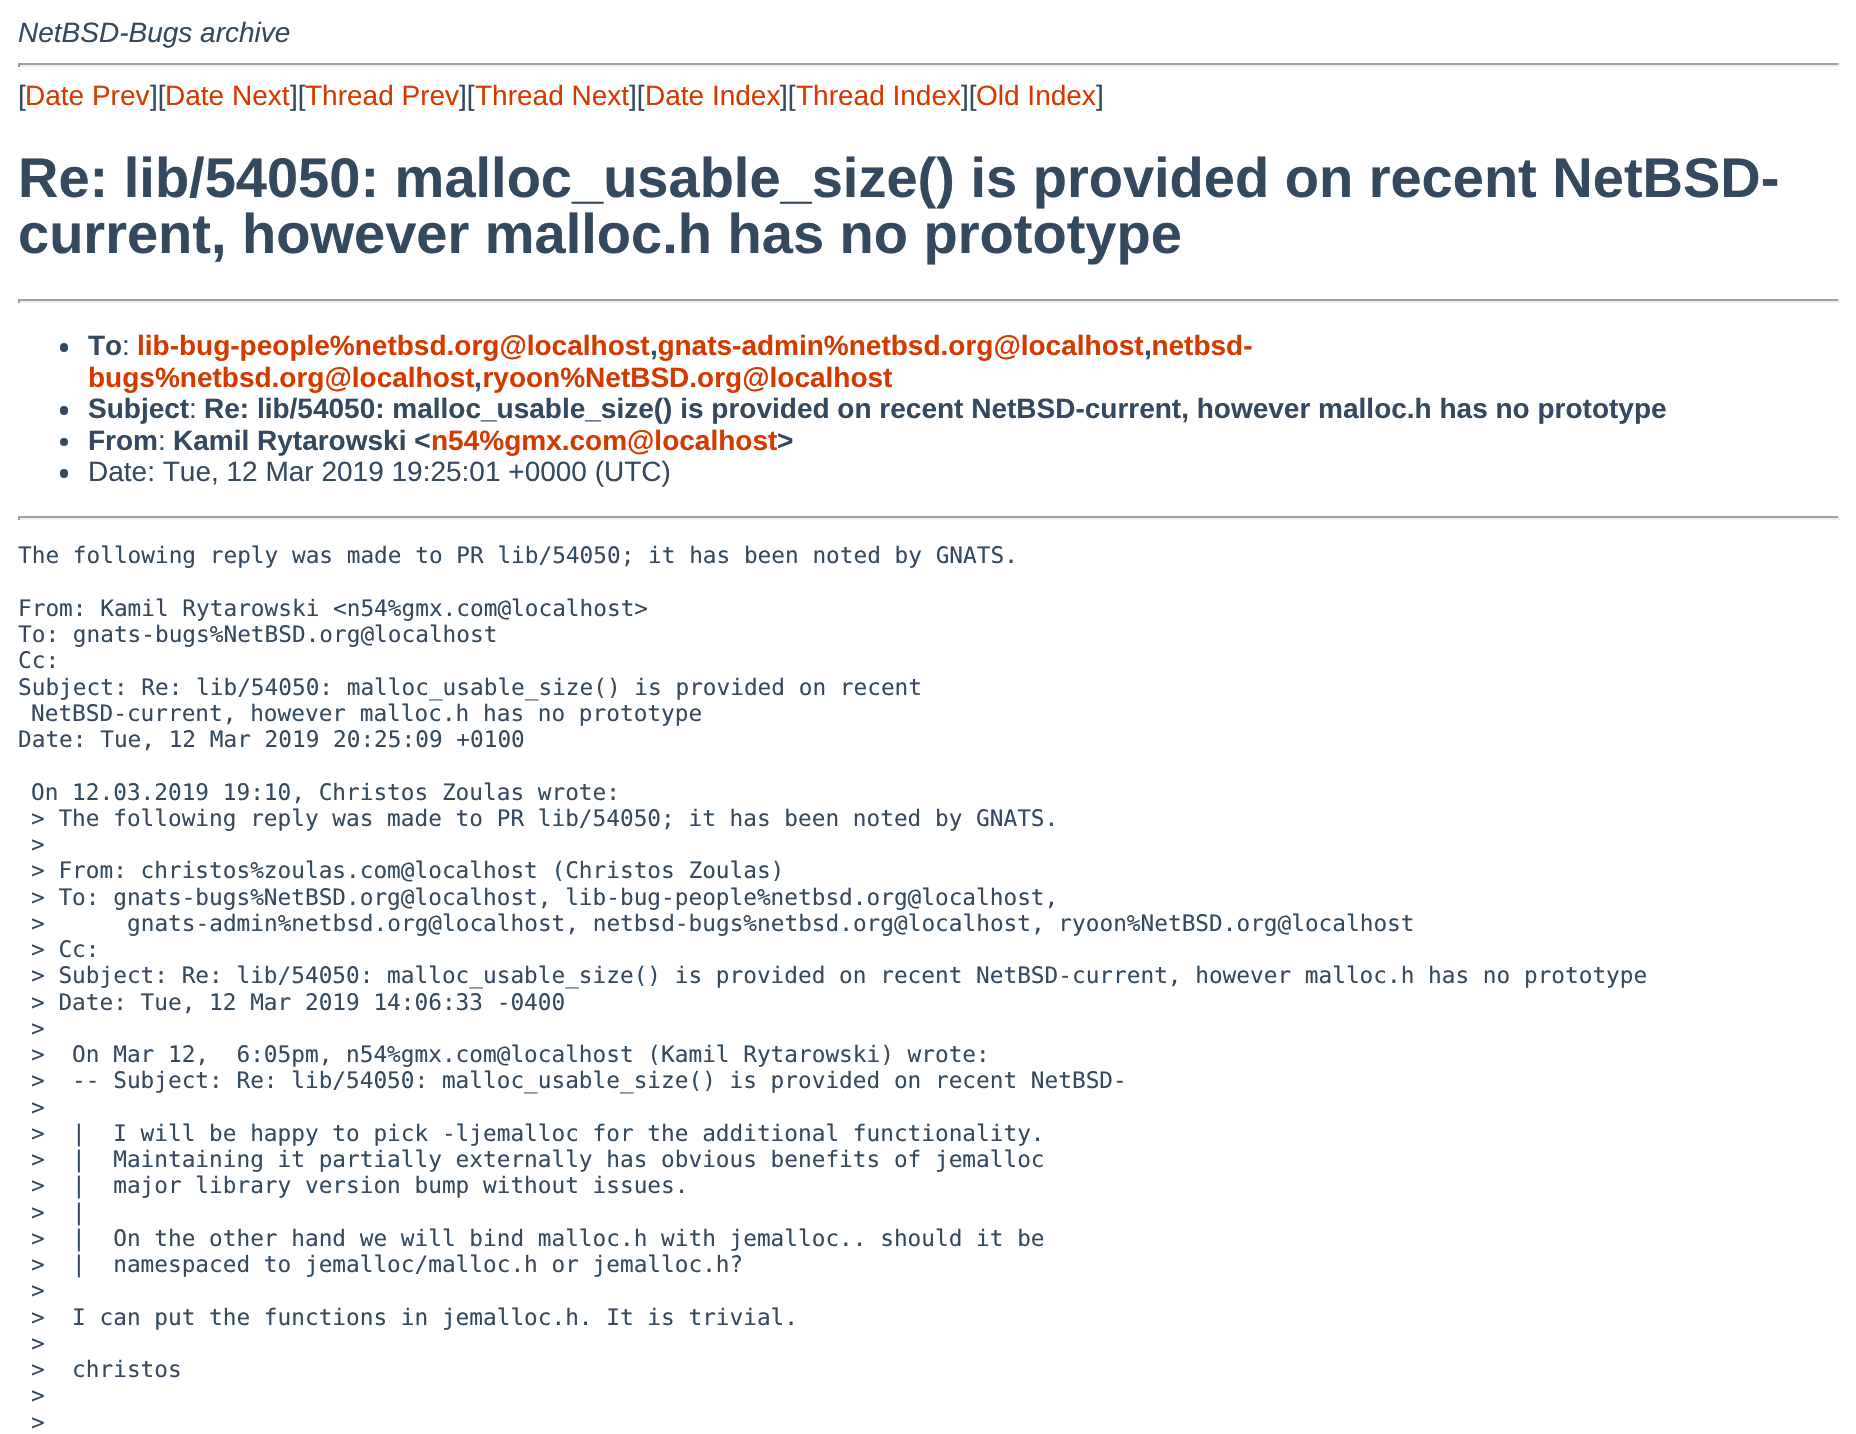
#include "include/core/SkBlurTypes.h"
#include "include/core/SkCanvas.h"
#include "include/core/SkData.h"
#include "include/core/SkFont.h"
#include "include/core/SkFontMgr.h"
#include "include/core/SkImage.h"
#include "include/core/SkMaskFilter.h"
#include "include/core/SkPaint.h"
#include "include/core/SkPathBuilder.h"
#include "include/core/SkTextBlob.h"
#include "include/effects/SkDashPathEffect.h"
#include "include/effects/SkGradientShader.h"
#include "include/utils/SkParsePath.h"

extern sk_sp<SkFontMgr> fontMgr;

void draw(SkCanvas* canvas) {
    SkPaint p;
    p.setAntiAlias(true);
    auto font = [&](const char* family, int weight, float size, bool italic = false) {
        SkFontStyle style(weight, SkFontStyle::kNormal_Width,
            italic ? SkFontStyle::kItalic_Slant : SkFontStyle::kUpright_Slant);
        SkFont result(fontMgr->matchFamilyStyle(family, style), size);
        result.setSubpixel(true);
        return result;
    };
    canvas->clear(0xFFFFFFFF);
    auto font1 = font("Liberation Sans", 400, 28, true);
    p.setColor(0xFF34495E);
    canvas->drawString("NetBSD-Bugs archive", 18, 42, font1, p);
    {
        const struct { float l, t, r, b; SkColor color; } items[] = {
            {18, 63, 1839, 65, 0xFF9F9F9F},
            {1838, 63, 1840, 67, 0xFFEEEEEE},
            {18, 65, 1839, 67, 0xFFEEEEEE},
            {18, 63, 20, 67, 0xFF9F9F9F},
        };
        for (auto [l, t, r, b, color] : items) {
            p.setColor(color);
            canvas->drawRect(SkRect::MakeLTRB(l, t, r, b), p);
        }
    }
    auto font2 = font("Liberation Sans", 400, 28);
    p.setColor(0xFF34495E);
    canvas->drawString("[", 18, 105, font2, p);
    p.setColor(0xFFD43900);
    canvas->drawString("Date Prev", 25, 105, font2, p);
    p.setColor(0xFF34495E);
    canvas->drawString("][", 150, 105, font2, p);
    p.setColor(0xFFD43900);
    canvas->drawString("Date Next", 165, 105, font2, p);
    p.setColor(0xFF34495E);
    canvas->drawString("][", 290, 105, font2, p);
    p.setColor(0xFFD43900);
    canvas->drawString("Thread Prev", 305, 105, font2, p);
    p.setColor(0xFF34495E);
    canvas->drawString("][", 459, 105, font2, p);
    p.setColor(0xFFD43900);
    canvas->drawString("Thread Next", 475, 105, font2, p);
    p.setColor(0xFF34495E);
    canvas->drawString("][", 629, 105, font2, p);
    p.setColor(0xFFD43900);
    canvas->drawString("Date Index", 645, 105, font2, p);
    p.setColor(0xFF34495E);
    canvas->drawString("][", 780, 105, font2, p);
    p.setColor(0xFFD43900);
    canvas->drawString("Thread Index", 796, 105, font2, p);
    p.setColor(0xFF34495E);
    canvas->drawString("][", 961, 105, font2, p);
    p.setColor(0xFFD43900);
    canvas->drawString("Old Index", 976, 105, font2, p);
    p.setColor(0xFF34495E);
    canvas->drawString("]", 1096, 105, font2, p);
    auto font3 = font("Liberation Sans", 700, 56);
    canvas->drawString("Re: lib/54050: malloc_usable_size() is provided on recent NetBSD-", 18, 197, font3, p);
    canvas->drawString("current, however malloc.h has no prototype", 18, 253, font3, p);
    {
        const struct { float l, t, r, b; SkColor color; } items[] = {
            {18, 299, 1839, 301, 0xFF9F9F9F},
            {1838, 299, 1840, 303, 0xFFEEEEEE},
            {18, 301, 1839, 303, 0xFFEEEEEE},
            {18, 299, 20, 303, 0xFF9F9F9F},
        };
        for (auto [l, t, r, b, color] : items) {
            p.setColor(color);
            canvas->drawRect(SkRect::MakeLTRB(l, t, r, b), p);
        }
    }
    p.setColor(0xFF34495E);
    canvas->drawRoundRect(SkRect::MakeLTRB(60, 343, 68, 352), 4, 4, p);
    auto font4 = font("Liberation Sans", 700, 28);
    canvas->drawString("To", 88, 355, font4, p);
    canvas->drawString(":", 122, 355, font2, p);
    p.setColor(0xFFD43900);
    canvas->drawString("lib-bug-people%netbsd.org@localhost gnats-admin%netbsd.org@localhost netbsd-", 137, 355, font4, p);
    p.setColor(0xFF34495E);
    canvas->drawString(",", 650, 355, font4, p);
    canvas->drawString(",", 1144, 355, font4, p);
    p.setColor(0xFFD43900);
    canvas->drawString("bugs%netbsd.org@localhost ryoon%NetBSD.org@localhost", 88, 387, font4, p);
    p.setColor(0xFF34495E);
    canvas->drawString(",", 474, 387, font4, p);
    canvas->drawRoundRect(SkRect::MakeLTRB(60, 406, 68, 415), 4, 4, p);
    canvas->drawString("Subject", 88, 418, font4, p);
    canvas->drawString(":", 189, 418, font2, p);
    canvas->drawString("Re: lib/54050: malloc_usable_size() is provided on recent NetBSD-current, however malloc.h has no prototype", 204, 418, font4, p);
    canvas->drawCircle(64, 442, 4, p);
    canvas->drawString("From", 88, 450, font4, p);
    canvas->drawString(":", 158, 450, font2, p);
    canvas->drawString("Kamil Rytarowski <", 173, 450, font4, p);
    p.setColor(0xFFD43900);
    canvas->drawString("n54%gmx.com@localhost", 431, 450, font4, p);
    p.setColor(0xFF34495E);
    canvas->drawString(">", 777, 450, font4, p);
    canvas->drawRoundRect(SkRect::MakeLTRB(60, 469, 68, 478), 4, 4, p);
    canvas->drawString("Date: Tue, 12 Mar 2019 19:25:01 +0000 (UTC)", 88, 481, font2, p);
    {
        const struct { float l, t, r, b; SkColor color; } items[] = {
            {18, 516, 1839, 518, 0xFF9F9F9F},
            {1838, 516, 1840, 520, 0xFFEEEEEE},
            {18, 518, 1839, 520, 0xFFEEEEEE},
            {18, 516, 20, 520, 0xFF9F9F9F},
        };
        for (auto [l, t, r, b, color] : items) {
            p.setColor(color);
            canvas->drawRect(SkRect::MakeLTRB(l, t, r, b), p);
        }
    }
    auto font5 = font("DejaVu Sans Mono", 400, 22.75f);
    p.setColor(0xFF34495E);
    {
        const struct { const char* s; float x, y; } items[] = {
            {"The following reply was made to PR lib/54050; it has been noted by GNATS.", 18, 563},
            {"From: Kamil Rytarowski <n54%gmx.com@localhost>", 18, 616},
            {"To: gnats-bugs%NetBSD.org@localhost", 18, 642},
            {"Cc:", 18, 668},
            {"Subject: Re: lib/54050: malloc_usable_size() is provided on recent", 18, 695},
            {"NetBSD-current, however malloc.h has no prototype", 31, 721},
            {"Date: Tue, 12 Mar 2019 20:25:09 +0100", 18, 747},
            {"On 12.03.2019 19:10, Christos Zoulas wrote:", 31, 800},
            {"> The following reply was made to PR lib/54050; it has been noted by GNATS.", 31, 826},
            {">", 31, 852},
            {"> From: christos%zoulas.com@localhost (Christos Zoulas)", 31, 878},
            {"> To: gnats-bugs%NetBSD.org@localhost, lib-bug-people%netbsd.org@localhost,", 31, 905},
            {">", 31, 931},
            {"gnats-admin%netbsd.org@localhost, netbsd-bugs%netbsd.org@localhost, ryoon%NetBSD.org@localhost", 127, 931},
            {"> Cc:", 31, 957},
            {"> Subject: Re: lib/54050: malloc_usable_size() is provided on recent NetBSD-current, however malloc.h has no prototype", 31, 983},
            {"> Date: Tue, 12 Mar 2019 14:06:33 -0400", 31, 1010},
            {">", 31, 1036},
            {">  On Mar 12,  6:05pm, n54%gmx.com@localhost (Kamil Rytarowski) wrote:", 31, 1062},
            {">  -- Subject: Re: lib/54050: malloc_usable_size() is provided on recent NetBSD-", 31, 1088},
            {">", 31, 1115},
            {">  |  I will be happy to pick -ljemalloc for the additional functionality.", 31, 1141},
            {">  |  Maintaining it partially externally has obvious benefits of jemalloc", 31, 1167},
            {">  |  major library version bump without issues.", 31, 1193},
            {">  |", 31, 1220},
            {">  |  On the other hand we will bind malloc.h with jemalloc.. should it be", 31, 1246},
            {">  |  namespaced to jemalloc/malloc.h or jemalloc.h?", 31, 1272},
            {">", 31, 1298},
            {">  I can put the functions in jemalloc.h. It is trivial.", 31, 1325},
            {">", 31, 1351},
            {">  christos", 31, 1377},
            {">", 31, 1403},
            {">", 31, 1430},
        };
        for (auto [s, x, y] : items) {
            canvas->drawString(s, x, y, font5, p);
        }
    }
}
